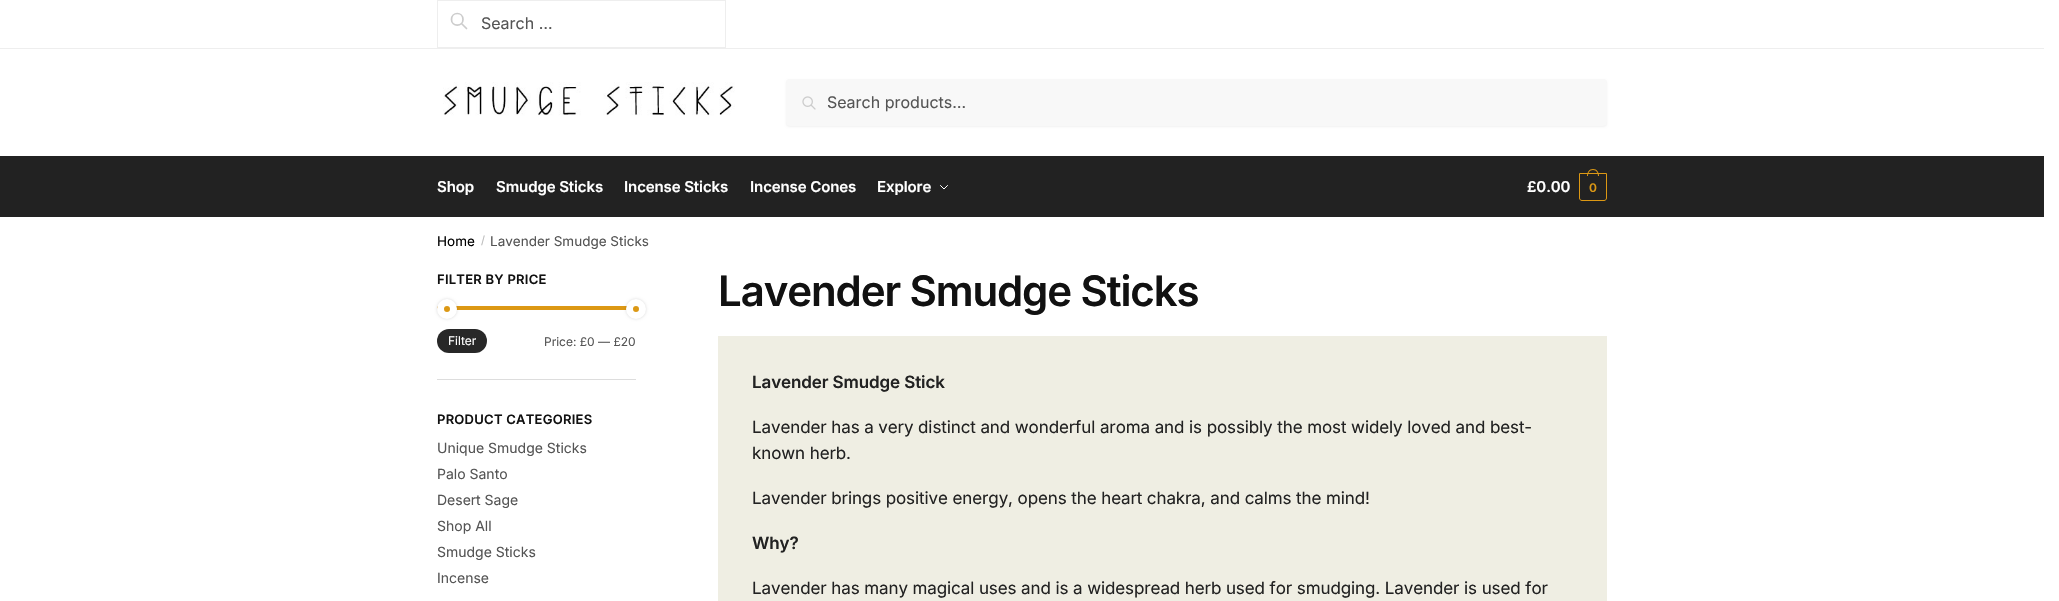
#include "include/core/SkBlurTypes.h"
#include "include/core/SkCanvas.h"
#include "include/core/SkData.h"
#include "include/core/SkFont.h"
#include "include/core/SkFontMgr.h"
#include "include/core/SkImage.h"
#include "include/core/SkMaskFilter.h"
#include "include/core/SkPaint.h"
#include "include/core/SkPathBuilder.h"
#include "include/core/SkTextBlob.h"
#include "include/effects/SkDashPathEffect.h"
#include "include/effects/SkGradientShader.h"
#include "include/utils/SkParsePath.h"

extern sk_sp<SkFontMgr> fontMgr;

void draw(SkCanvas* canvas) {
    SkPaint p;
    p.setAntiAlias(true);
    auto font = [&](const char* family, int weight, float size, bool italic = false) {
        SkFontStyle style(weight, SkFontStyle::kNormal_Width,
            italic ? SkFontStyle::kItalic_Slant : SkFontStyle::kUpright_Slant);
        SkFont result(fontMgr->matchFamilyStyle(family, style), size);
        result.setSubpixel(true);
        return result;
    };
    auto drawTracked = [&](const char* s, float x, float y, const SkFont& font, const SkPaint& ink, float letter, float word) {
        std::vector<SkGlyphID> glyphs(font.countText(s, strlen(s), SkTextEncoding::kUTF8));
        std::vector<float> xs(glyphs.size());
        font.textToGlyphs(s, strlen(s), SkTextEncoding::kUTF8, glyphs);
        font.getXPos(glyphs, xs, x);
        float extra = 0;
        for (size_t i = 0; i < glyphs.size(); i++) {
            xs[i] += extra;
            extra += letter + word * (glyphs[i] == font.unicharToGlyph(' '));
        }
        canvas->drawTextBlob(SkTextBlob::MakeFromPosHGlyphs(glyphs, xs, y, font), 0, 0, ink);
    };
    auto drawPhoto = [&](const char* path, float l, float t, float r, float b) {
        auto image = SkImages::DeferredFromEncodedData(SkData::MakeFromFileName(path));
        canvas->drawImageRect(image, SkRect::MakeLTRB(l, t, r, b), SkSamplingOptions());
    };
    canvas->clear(0xFFFFFFFF);
    p.setColor(0xFFEEEEEE);
    canvas->drawRect(SkRect::MakeLTRB(0, 48, 2044, 49), p);
    p.setStyle(SkPaint::kStroke_Style);
    p.setStrokeWidth(1);
    canvas->drawRect(SkRect::MakeLTRB(437.5f, 0.5f, 725.5f, 47.5f), p);
    p.setStrokeWidth(1.7f);
    p.setStrokeCap(SkPaint::kRound_Cap);
    p.setStrokeJoin(SkPaint::kRound_Join);
    p.setColor(0xFFCCCCCC);
    canvas->drawPath(SkPathBuilder().moveTo(466.5f, 28.5f).lineTo(461.5f, 23.5f).moveTo(463, 19.5f).cubicTo(463, 27, 451.5f, 27, 451.5f, 19.5f).cubicTo(451.5f, 11.5f, 463, 11.5f, 463, 19.5f).close().detach(), p);
    auto font1 = font("Inter", 400, 16);
    p.setStyle(SkPaint::kFill_Style);
    p.setColor(0xFF555555);
    canvas->drawString("Search …", 481, 29, font1, p);
    drawPhoto("media/1.png", 443, 82, 735, 116);
    p.setColor(0x0D000000);
    p.setMaskFilter(SkMaskFilter::MakeBlur(kNormal_SkBlurStyle, 1));
    canvas->drawRoundRect(SkRect::MakeLTRB(786, 80, 1607, 127), 4, 4, p);
    p.setMaskFilter(nullptr);
    p.setColor(0xFFF8F8F8);
    canvas->drawRoundRect(SkRect::MakeLTRB(786, 79, 1607, 126), 4, 4, p);
    drawPhoto("media/2.png", 802, 96, 816, 110);
    p.setColor(0xFF555555);
    canvas->drawString("Search products…", 827, 108, font1, p);
    p.setColor(0xFF222222);
    canvas->drawRect(SkRect::MakeLTRB(0, 156, 2044, 217), p);
    auto font2 = font("Inter", 600, 15);
    p.setColor(0xFFFFFFFF);
    {
        const struct { const char* s; float x, y; } items[] = {
            {"Shop", 437, 192},
            {"Smudge Sticks", 496, 192},
            {"Incense Sticks", 624, 192},
            {"Incense Cones", 750, 192},
            {"Explore", 877, 192},
        };
        for (auto [s, x, y] : items) {
            drawTracked(s, x, y, font2, p, -0.1f, 0);
        }
    }
    p.setStyle(SkPaint::kStroke_Style);
    p.setStrokeWidth(1);
    canvas->drawPath(SkPathBuilder().moveTo(947.5f, 185.5f).lineTo(944, 189).lineTo(940.5f, 185.5f).detach(), p);
    p.setStyle(SkPaint::kFill_Style);
    drawTracked("£0.00", 1527, 192, font2, p, -0.1f, 0);
    p.setStyle(SkPaint::kStroke_Style);
    p.setStrokeCap(SkPaint::kButt_Cap);
    p.setStrokeJoin(SkPaint::kMiter_Join);
    p.setColor(0xFFDC9814);
    canvas->drawPath(SkPathBuilder().moveTo(1579.5f, 173.5f).lineTo(1606.5f, 173.5f).lineTo(1606.5f, 198).cubicTo(1606.5f, 199.5f, 1605.5f, 200.5f, 1604, 200.5f).lineTo(1582, 200.5f).cubicTo(1580.5f, 200.5f, 1579.5f, 199.5f, 1579.5f, 198).close().detach(), p);
    p.setStyle(SkPaint::kFill_Style);
    canvas->drawPath(SkPathBuilder(SkPathFillType::kEvenOdd).moveTo(1593, 169).cubicTo(1597, 169, 1599, 172.5f, 1599, 176).lineTo(1587, 176).cubicTo(1587, 172.5f, 1589, 169, 1593, 169).close().moveTo(1593, 170).cubicTo(1596.5f, 170, 1598, 173, 1598, 176).lineTo(1588, 176).cubicTo(1588, 173, 1589.5f, 170, 1593, 170).close().detach(), p);
    auto font3 = font("Inter", 600, 12);
    drawTracked("0", 1589, 192, font3, p, -1, 0);
    auto font4 = font("Inter", 400, 13.5f);
    p.setColor(0xFF000000);
    canvas->drawString("Home", 437, 246, font4, p);
    auto font5 = font("Inter", 400, 11);
    p.setColor(0xFFBBBBBB);
    canvas->drawString("/", 481, 244, font5, p);
    p.setColor(0xFF555555);
    canvas->drawString("Lavender Smudge Sticks", 490, 246, font4, p);
    p.setColor(0xFFDDDDDD);
    canvas->drawRect(SkRect::MakeLTRB(437, 379, 636, 380), p);
    auto font6 = font("Inter", 600, 13);
    p.setColor(0xFF111111);
    drawTracked("FILTER BY PRICE", 437, 284, font6, p, 0.25f, 0);
    p.setColor(0xFFDC9814);
    canvas->drawRoundRect(SkRect::MakeLTRB(437, 306, 636, 310), 2, 2, p);
    p.setColor(0x26000000);
    p.setMaskFilter(SkMaskFilter::MakeBlur(kNormal_SkBlurStyle, 1.5f));
    canvas->drawRoundRect(SkRect::MakeLTRB(437, 299, 457, 319), 10, 10, p);
    p.setMaskFilter(nullptr);
    p.setColor(0xFFDC9814);
    canvas->drawCircle(447, 309, 6.5f, p);
    p.setStyle(SkPaint::kStroke_Style);
    p.setStrokeWidth(7);
    p.setColor(0xFFFFFFFF);
    canvas->drawCircle(447, 309, 6.5f, p);
    p.setStyle(SkPaint::kFill_Style);
    p.setColor(0x26000000);
    p.setMaskFilter(SkMaskFilter::MakeBlur(kNormal_SkBlurStyle, 1.5f));
    canvas->drawRoundRect(SkRect::MakeLTRB(626, 299, 646, 319), 10, 10, p);
    p.setMaskFilter(nullptr);
    p.setColor(0xFFDC9814);
    canvas->drawCircle(636, 309, 6.5f, p);
    p.setStyle(SkPaint::kStroke_Style);
    p.setColor(0xFFFFFFFF);
    canvas->drawCircle(636, 309, 6.5f, p);
    p.setStyle(SkPaint::kFill_Style);
    p.setColor(0xFF282828);
    canvas->drawRoundRect(SkRect::MakeLTRB(437, 329, 487, 353), 12, 12, p);
    auto font7 = font("Inter", 400, 12);
    p.setColor(0xFFFFFFFF);
    canvas->drawString("Filter", 448, 345, font7, p);
    p.setColor(0xFF555555);
    canvas->drawString("Price: £0 — £20", 544, 346, font7, p);
    p.setColor(0xFF111111);
    drawTracked("PRODUCT CATEGORIES", 437, 424, font6, p, 0.25f, 0);
    auto font8 = font("Inter", 400, 14);
    p.setColor(0xFF555555);
    {
        const struct { const char* s; float x, y; } items[] = {
            {"Unique Smudge Sticks", 437, 453},
            {"Palo Santo", 437, 479},
            {"Desert Sage", 437, 505},
            {"Shop All", 437, 531},
            {"Smudge Sticks", 437, 557},
            {"Incense", 437, 583},
        };
        for (auto [s, x, y] : items) {
            canvas->drawString(s, x, y, font8, p);
        }
    }
    auto font9 = font("Inter", 600, 42);
    p.setColor(0xFF111111);
    drawTracked("Lavender Smudge Sticks", 718, 306, font9, p, -1.1f, 0);
    p.setColor(0xFFEFEEE3);
    canvas->drawRect(SkRect::MakeLTRB(718, 336, 1607, 601), p);
    auto font10 = font("Inter", 600, 17);
    p.setColor(0xFF222222);
    drawTracked("Lavender Smudge Stick", 752, 388, font10, p, -0.1f, 0);
    auto font11 = font("Inter", 400, 17);
    {
        const struct { const char* s; float x, y; } items[] = {
            {"Lavender has a very distinct and wonderful aroma and is possibly the most widely loved and best-", 752, 433},
            {"known herb.", 752, 459},
            {"Lavender brings positive energy, opens the heart chakra, and calms the mind!", 752, 504},
        };
        for (auto [s, x, y] : items) {
            drawTracked(s, x, y, font11, p, -0.1f, 0);
        }
    }
    drawTracked("Why?", 752, 549, font10, p, -0.1f, 0);
    drawTracked("Lavender has many magical uses and is a widespread herb used for smudging. Lavender is used for", 752, 594, font11, p, -0.1f, 0);
}
